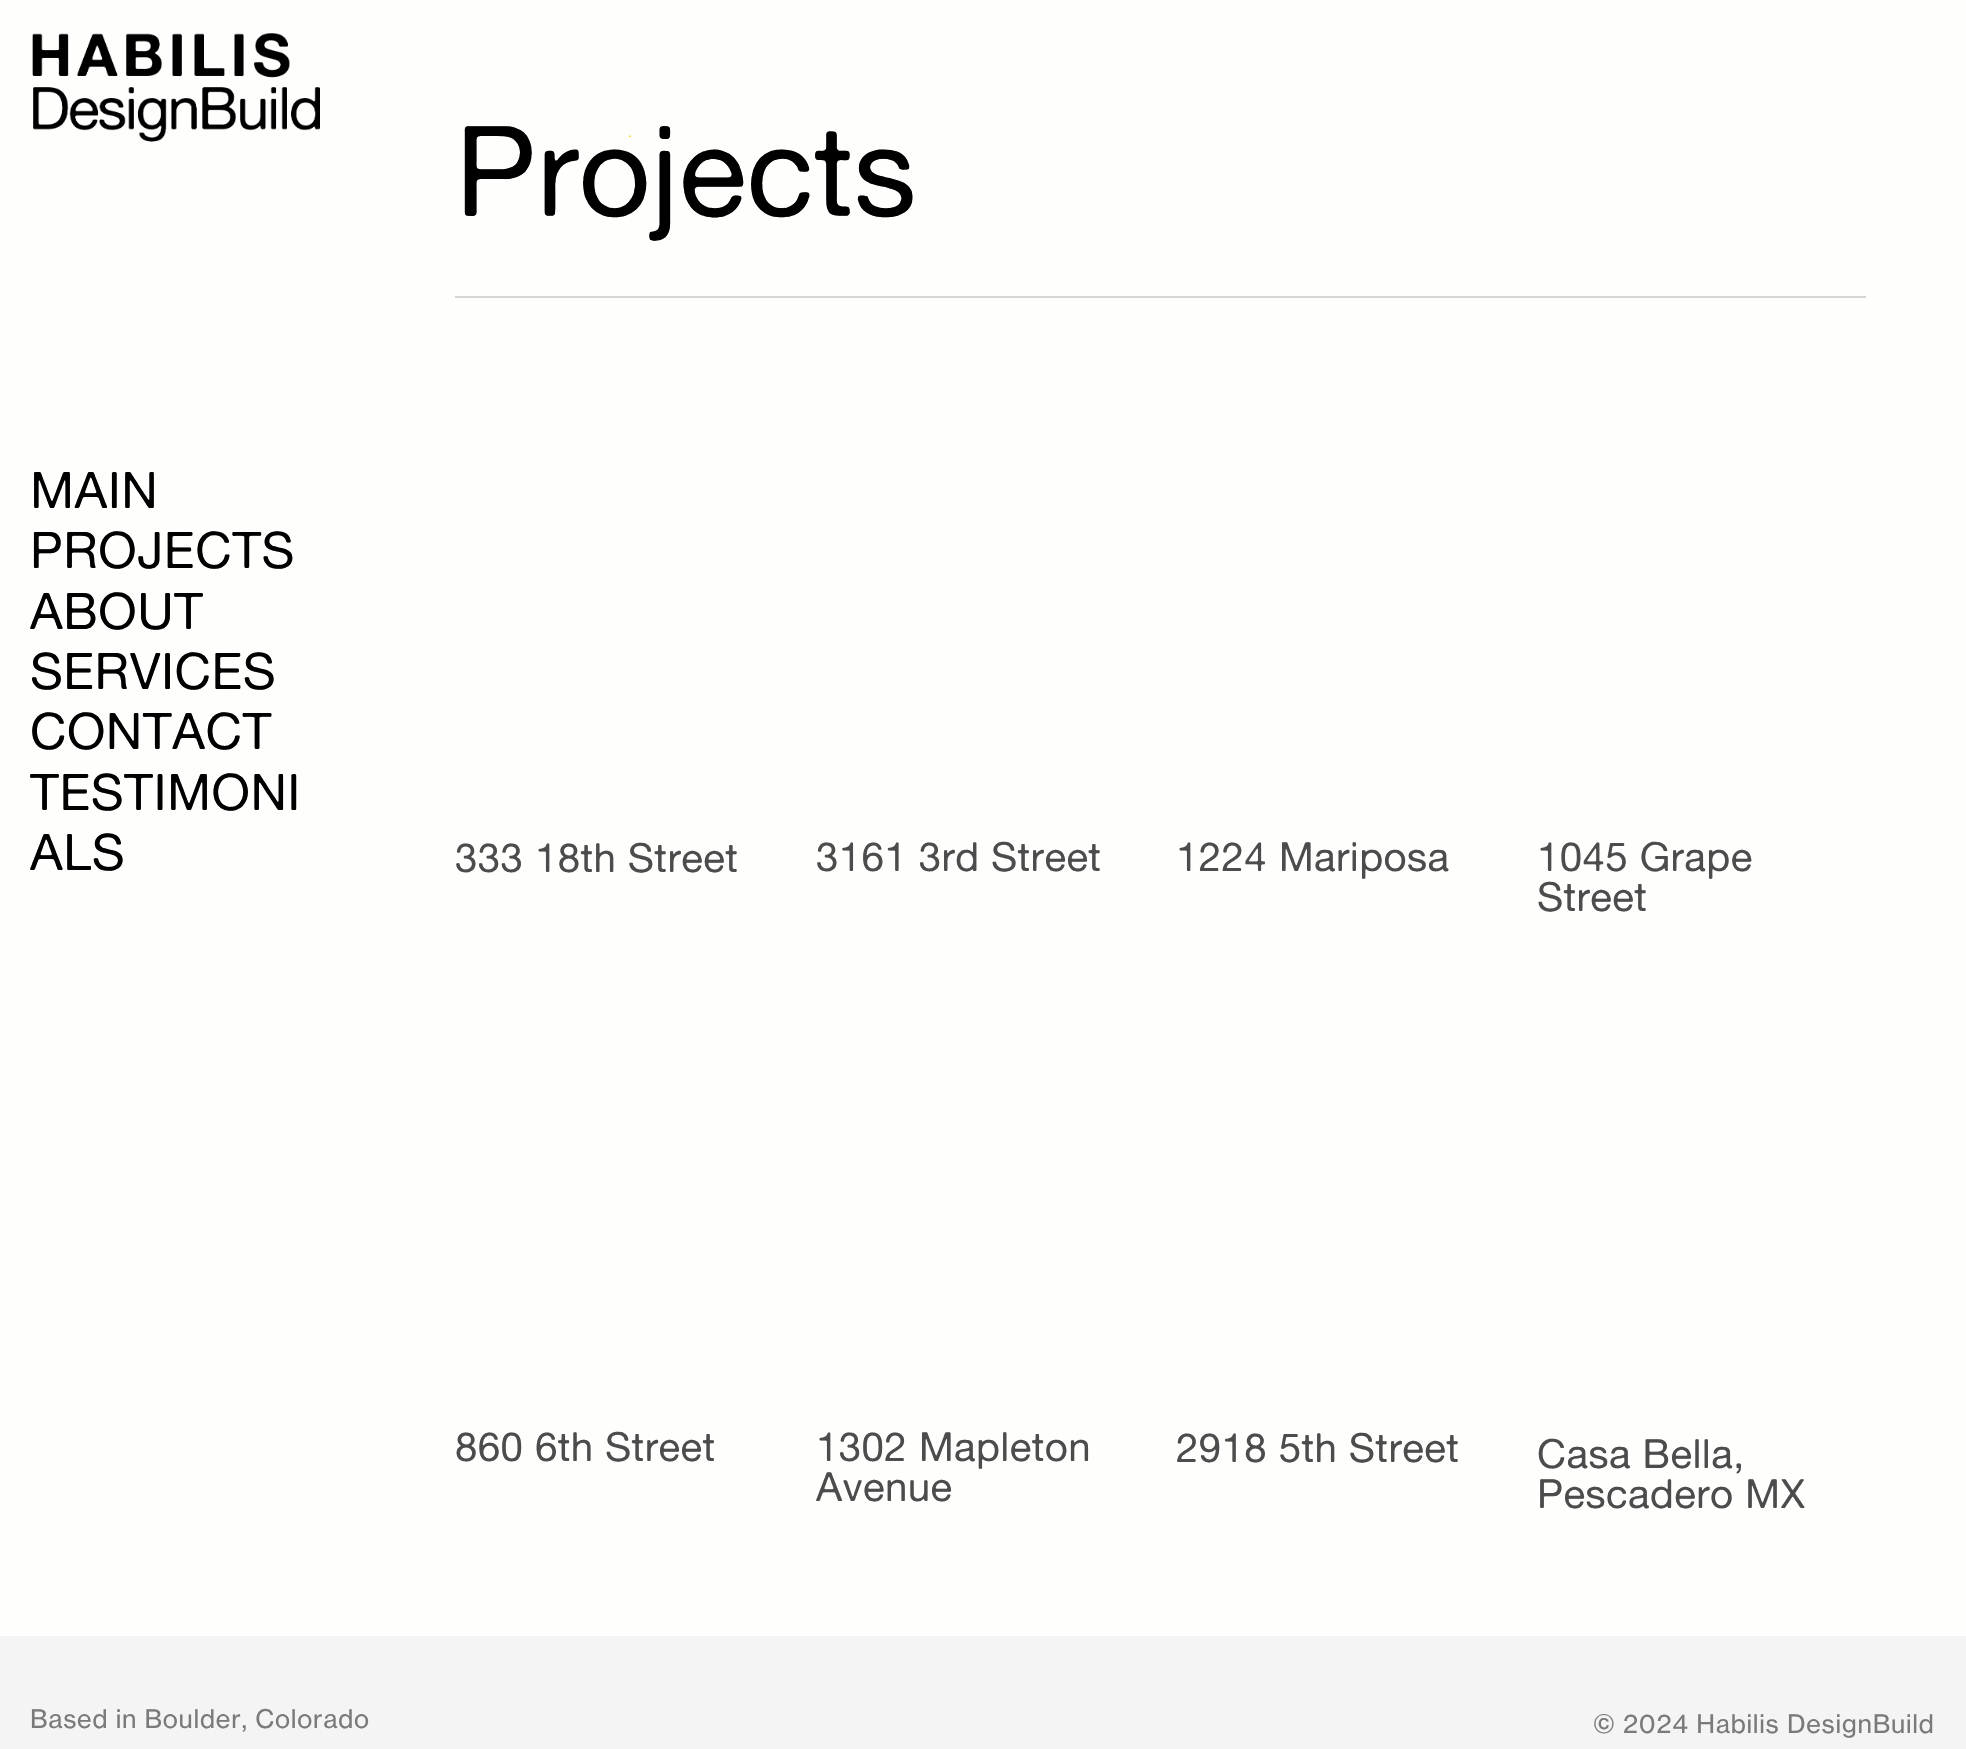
#include "include/core/SkBlurTypes.h"
#include "include/core/SkCanvas.h"
#include "include/core/SkData.h"
#include "include/core/SkFont.h"
#include "include/core/SkFontMgr.h"
#include "include/core/SkImage.h"
#include "include/core/SkMaskFilter.h"
#include "include/core/SkPaint.h"
#include "include/core/SkPathBuilder.h"
#include "include/core/SkTextBlob.h"
#include "include/effects/SkDashPathEffect.h"
#include "include/effects/SkGradientShader.h"
#include "include/utils/SkParsePath.h"

extern sk_sp<SkFontMgr> fontMgr;

void draw(SkCanvas* canvas) {
    SkPaint p;
    p.setAntiAlias(true);
    auto font = [&](const char* family, int weight, float size, bool italic = false) {
        SkFontStyle style(weight, SkFontStyle::kNormal_Width,
            italic ? SkFontStyle::kItalic_Slant : SkFontStyle::kUpright_Slant);
        SkFont result(fontMgr->matchFamilyStyle(family, style), size);
        result.setSubpixel(true);
        return result;
    };
    auto drawTracked = [&](const char* s, float x, float y, const SkFont& font, const SkPaint& ink, float letter, float word) {
        std::vector<SkGlyphID> glyphs(font.countText(s, strlen(s), SkTextEncoding::kUTF8));
        std::vector<float> xs(glyphs.size());
        font.textToGlyphs(s, strlen(s), SkTextEncoding::kUTF8, glyphs);
        font.getXPos(glyphs, xs, x);
        float extra = 0;
        for (size_t i = 0; i < glyphs.size(); i++) {
            xs[i] += extra;
            extra += letter + word * (glyphs[i] == font.unicharToGlyph(' '));
        }
        canvas->drawTextBlob(SkTextBlob::MakeFromPosHGlyphs(glyphs, xs, y, font), 0, 0, ink);
    };
    auto drawPhoto = [&](const char* path, float l, float t, float r, float b) {
        auto image = SkImages::DeferredFromEncodedData(SkData::MakeFromFileName(path));
        canvas->drawImageRect(image, SkRect::MakeLTRB(l, t, r, b), SkSamplingOptions());
    };
    canvas->clear(0xFFFEFEFD);
    drawPhoto("media/1.png", 32, 33, 320, 142);
    auto font1 = font("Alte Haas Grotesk", 400, 50.5f);
    p.setColor(0xFF000000);
    {
        const struct { const char* s; float x, y; } items[] = {
            {"MAIN", 30, 508},
            {"PROJECTS", 30, 568},
            {"ABOUT", 30, 629},
            {"SERVICES", 30, 689},
            {"CONTACT", 30, 749},
            {"TESTIMONI", 30, 810},
            {"ALS", 30, 870},
        };
        for (auto [s, x, y] : items) {
            drawTracked(s, x, y, font1, p, 0.5f, 0);
        }
    }
    auto font2 = font("Alte Haas Grotesk", 400, 126);
    canvas->drawString("Projects", 455, 216, font2, p);
    p.setColor(0xFFD5D5D5);
    canvas->drawRect(SkRect::MakeLTRB(455, 296, 1866, 298), p);
    auto font3 = font("Alte Haas Grotesk", 400, 40.25f);
    p.setColor(0xFF4C4C4C);
    {
        const struct { const char* s; float x, y; } items[] = {
            {"333 18th Street", 455, 872},
            {"3161 3rd Street", 816, 871},
            {"1224 Mariposa", 1176, 871},
            {"1045 Grape", 1537, 871},
            {"Street", 1537, 911},
            {"860 6th Street", 455, 1461},
            {"1302 Mapleton", 816, 1461},
            {"Avenue", 816, 1501},
            {"2918 5th Street", 1176, 1462},
            {"Casa Bella,", 1537, 1468},
            {"Pescadero MX", 1537, 1508},
        };
        for (auto [s, x, y] : items) {
            drawTracked(s, x, y, font3, p, 0.4f, 0);
        }
    }
    p.setColor(0xFFFBD400);
    canvas->drawPath(SkPathBuilder().moveTo(629, 135.5f).lineTo(630.5f, 135.5f).lineTo(630.5f, 137).lineTo(629, 137).close().detach(), p);
    p.setColor(0xFFF4F4F4);
    canvas->drawRect(SkRect::MakeLTRB(0, 1636, 1966, 1749), p);
    auto font4 = font("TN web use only", 400, 25.25f);
    p.setColor(0xFF7A7A7A);
    drawTracked("Based in Boulder, Colorado", 30, 1728, font4, p, 0.75f, 0);
    drawTracked("© 2024 Habilis DesignBuild", 1593, 1733, font4, p, 0.75f, 0);
}
